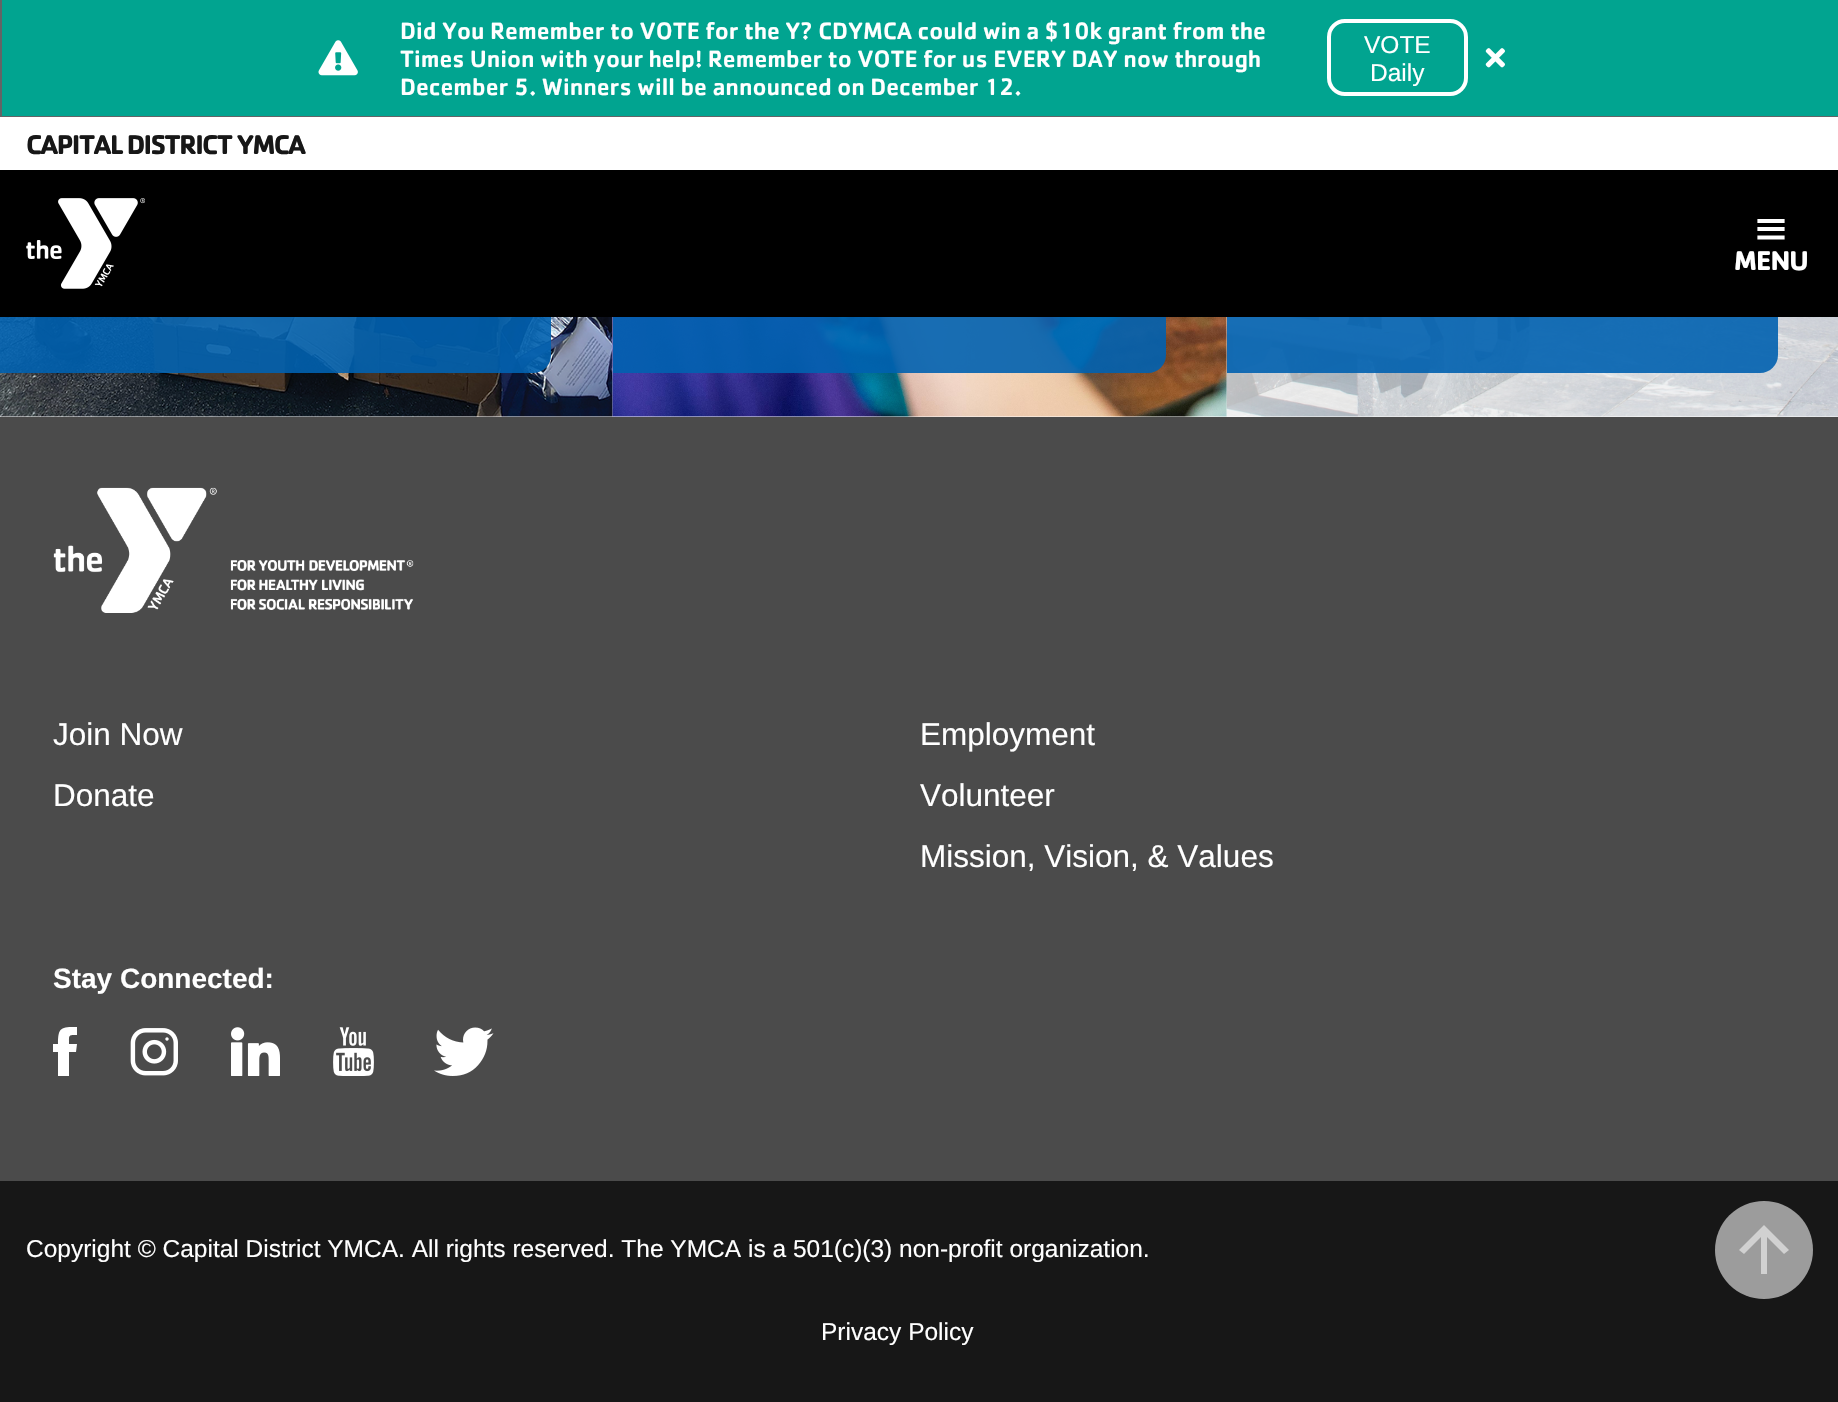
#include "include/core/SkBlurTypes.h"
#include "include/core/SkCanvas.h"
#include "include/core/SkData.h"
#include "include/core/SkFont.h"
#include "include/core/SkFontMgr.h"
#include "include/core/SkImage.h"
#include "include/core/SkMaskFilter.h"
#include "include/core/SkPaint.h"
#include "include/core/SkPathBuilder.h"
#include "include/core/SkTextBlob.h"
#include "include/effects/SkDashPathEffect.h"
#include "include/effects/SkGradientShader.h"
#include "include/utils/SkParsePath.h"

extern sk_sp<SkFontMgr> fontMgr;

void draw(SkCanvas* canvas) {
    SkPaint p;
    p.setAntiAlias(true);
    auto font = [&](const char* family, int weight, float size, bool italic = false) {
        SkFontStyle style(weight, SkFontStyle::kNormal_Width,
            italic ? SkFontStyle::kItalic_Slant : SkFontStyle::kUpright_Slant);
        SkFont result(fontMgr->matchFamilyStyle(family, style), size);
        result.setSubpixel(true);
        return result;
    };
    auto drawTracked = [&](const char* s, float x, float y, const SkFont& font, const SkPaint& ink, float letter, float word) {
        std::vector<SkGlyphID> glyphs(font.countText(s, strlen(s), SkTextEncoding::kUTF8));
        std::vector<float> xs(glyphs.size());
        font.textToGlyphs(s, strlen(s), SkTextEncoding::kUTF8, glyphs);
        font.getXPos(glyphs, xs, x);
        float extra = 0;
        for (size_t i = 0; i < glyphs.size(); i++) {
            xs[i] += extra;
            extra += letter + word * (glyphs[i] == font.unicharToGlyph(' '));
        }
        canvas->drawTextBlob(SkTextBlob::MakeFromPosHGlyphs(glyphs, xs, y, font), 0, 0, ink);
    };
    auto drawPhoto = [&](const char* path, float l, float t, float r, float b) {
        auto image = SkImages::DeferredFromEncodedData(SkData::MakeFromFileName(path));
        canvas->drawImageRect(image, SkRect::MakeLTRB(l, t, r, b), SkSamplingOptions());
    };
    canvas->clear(0xFFFFFFFF);
    p.setStyle(SkPaint::kStroke_Style);
    p.setStrokeWidth(2);
    p.setColor(0xFF636466);
    canvas->drawRect(SkRect::MakeLTRB(1, 1, 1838, 116), p);
    p.setStyle(SkPaint::kFill_Style);
    p.setColor(0xFF01A490);
    canvas->drawRect(SkRect::MakeLTRB(2, 0, 1838, 116), p);
    drawPhoto("media/1.png", 318, 40, 358, 76);
    auto font1 = font("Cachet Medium", 500, 24.5f);
    p.setColor(0xFFFFFFFF);
    {
        const struct { const char* s; float x, y; } items[] = {
            {"Did You Remember to VOTE for the Y? CDYMCA could win a $10k grant from the", 400, 39},
            {"Times Union with your help! Remember to VOTE for us EVERY DAY now through", 400, 67},
            {"December 5. Winners will be announced on December 12.", 400, 95},
        };
        for (auto [s, x, y] : items) {
            canvas->drawString(s, x, y, font1, p);
        }
    }
    p.setStyle(SkPaint::kStroke_Style);
    p.setStrokeWidth(4);
    canvas->drawRoundRect(SkRect::MakeLTRB(1329, 21, 1466, 94), 16, 16, p);
    auto font2 = font("Liberation Sans", 400, 24.5f);
    p.setStyle(SkPaint::kFill_Style);
    canvas->drawString("VOTE", 1364, 53, font2, p);
    canvas->drawString("Daily", 1370, 81, font2, p);
    drawPhoto("media/2.png", 1485, 48, 1505, 68);
    drawPhoto("media/4.png", 0, 317, 613, 417);
    p.setColor(0xE60060AF);
    canvas->drawPath(SkPathBuilder().moveTo(0, 242).lineTo(533, 242).cubicTo(543, 242, 551, 250, 551, 260).lineTo(551, 355).cubicTo(551, 365, 543, 373, 533, 373).lineTo(0, 373).close().detach(), p);
    drawPhoto("media/5.png", 612, 317, 1227, 417);
    canvas->drawPath(SkPathBuilder().moveTo(613, 242).lineTo(1148, 242).cubicTo(1158, 242, 1166, 250, 1166, 260).lineTo(1166, 355).cubicTo(1166, 365, 1158, 373, 1148, 373).lineTo(613, 373).close().detach(), p);
    drawPhoto("media/6.png", 1226, 317, 1838, 417);
    canvas->drawPath(SkPathBuilder().moveTo(1227, 242).lineTo(1760, 242).cubicTo(1770, 242, 1778, 250, 1778, 260).lineTo(1778, 355).cubicTo(1778, 365, 1770, 373, 1760, 373).lineTo(1227, 373).close().detach(), p);
    p.setColor(0xFF000000);
    canvas->drawRect(SkRect::MakeLTRB(0, 170, 1838, 317), p);
    auto font3 = font("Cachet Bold", 700, 28);
    p.setColor(0xFF171717);
    drawTracked("CAPITAL DISTRICT YMCA", 26, 154, font3, p, -1.75f, 0);
    drawPhoto("media/3.png", 26, 198, 145, 289);
    p.setStyle(SkPaint::kStroke_Style);
    p.setStrokeWidth(4.2f);
    p.setStrokeCap(SkPaint::kSquare_Cap);
    p.setColor(0xFFFFFFFF);
    canvas->drawPath(SkPathBuilder().moveTo(1759.5f, 221).lineTo(1782.5f, 221).moveTo(1759.5f, 229).lineTo(1782.5f, 229).moveTo(1759.5f, 237.5f).lineTo(1782.5f, 237.5f).detach(), p);
    p.setStyle(SkPaint::kFill_Style);
    drawTracked("MENU", 1734, 270, font3, p, -1, 0);
    p.setColor(0xFF4B4B4B);
    canvas->drawRect(SkRect::MakeLTRB(0, 417, 1838, 1181), p);
    drawPhoto("media/7.png", 53, 487, 414, 613);
    auto font4 = font("Liberation Sans", 400, 31.5f);
    p.setColor(0xFFFFFFFF);
    {
        const struct { const char* s; float x, y; } items[] = {
            {"Join Now", 53, 745},
            {"Donate", 53, 806},
            {"Employment", 920, 745},
            {"Volunteer", 920, 806},
            {"Mission, Vision, & Values", 920, 867},
        };
        for (auto [s, x, y] : items) {
            canvas->drawString(s, x, y, font4, p);
        }
    }
    auto font5 = font("Liberation Sans", 700, 28);
    canvas->drawString("Stay Connected:", 53, 988, font5, p);
    canvas->save();
    canvas->clipRect(SkRect::MakeLTRB(53, 1027, 77, 1076));
    canvas->drawPath(SkPathBuilder(SkPathFillType::kEvenOdd).moveTo(69, 1044).lineTo(77, 1044).lineTo(76, 1052).lineTo(69, 1052).lineTo(69, 1076).lineTo(58, 1076).lineTo(58, 1052).lineTo(52, 1052).lineTo(52, 1044).lineTo(58, 1044).cubicTo(58, 1027, 61, 1027, 77, 1027).lineTo(77, 1035).cubicTo(68, 1035, 69, 1035, 69, 1044).close().detach(), p);
    canvas->restore();
    drawPhoto("media/8.png", 130, 1028, 178, 1076);
    drawPhoto("media/9.png", 231, 1027, 280, 1076);
    drawPhoto("media/10.png", 333, 1027, 374, 1076);
    drawPhoto("media/11.png", 434, 1027, 494, 1076);
    p.setColor(0xFF171717);
    canvas->drawRect(SkRect::MakeLTRB(0, 1181, 1838, 1402), p);
    p.setColor(0xFFFFFFFF);
    canvas->drawString("Copyright © Capital District YMCA. All rights reserved. The YMCA is a 501(c)(3) non-profit organization.", 26, 1257, font2, p);
    canvas->drawString("Privacy Policy", 821, 1340, font2, p);
    p.setColor(0xFF9C9C9C);
    canvas->drawCircle(1764, 1250, 49, p);
    p.setColor(0xFFD1D1D1);
    canvas->drawPath(SkPathBuilder().moveTo(1739, 1250).lineTo(1764, 1225).lineTo(1789, 1250).lineTo(1784, 1254).lineTo(1767, 1237).lineTo(1767, 1274).lineTo(1761, 1274).lineTo(1761, 1237).lineTo(1744, 1254).close().detach(), p);
}
